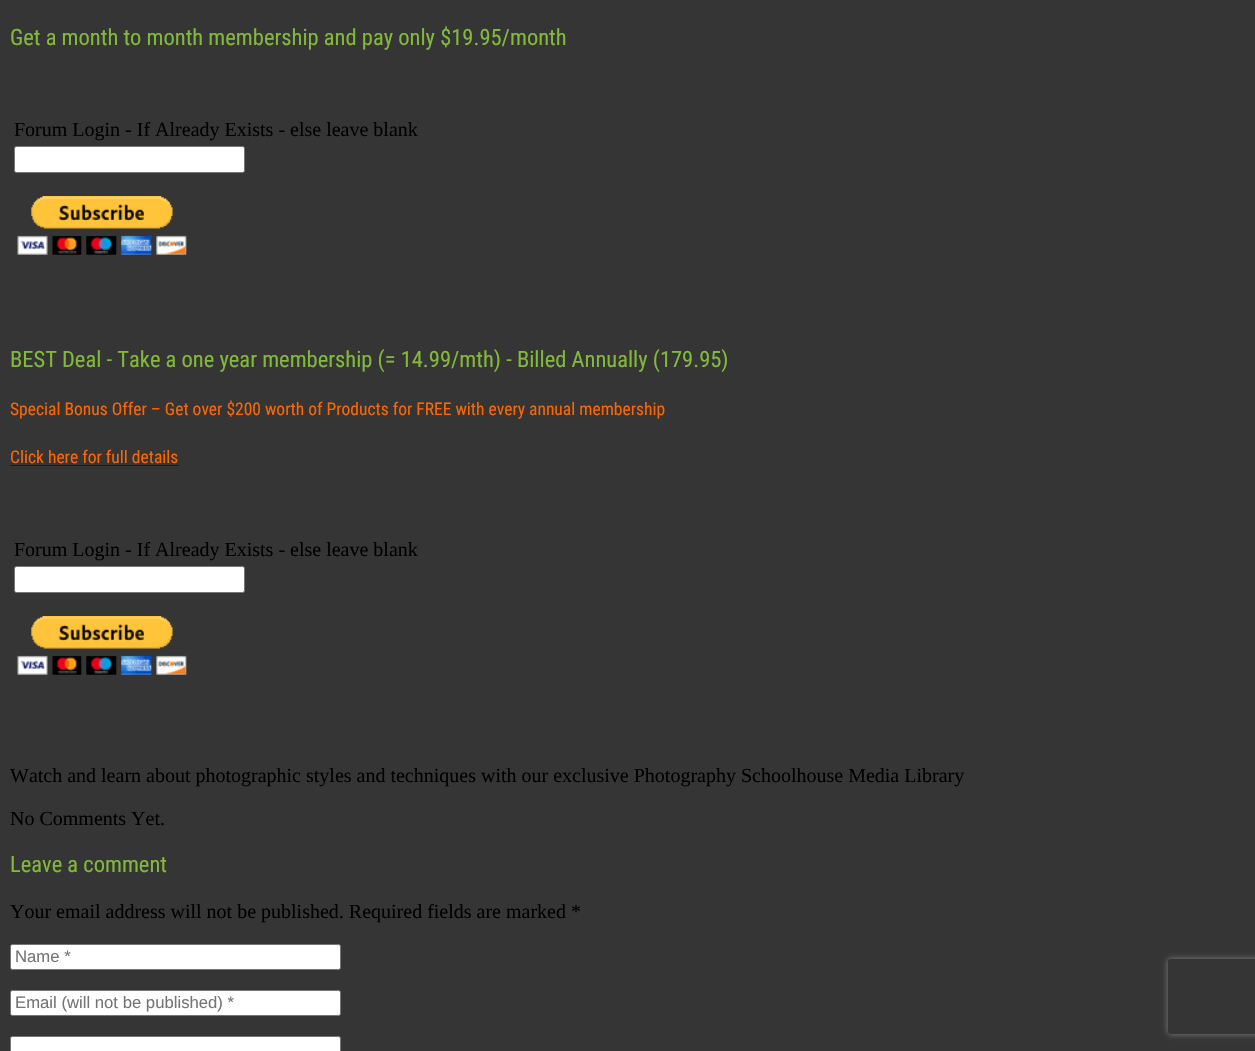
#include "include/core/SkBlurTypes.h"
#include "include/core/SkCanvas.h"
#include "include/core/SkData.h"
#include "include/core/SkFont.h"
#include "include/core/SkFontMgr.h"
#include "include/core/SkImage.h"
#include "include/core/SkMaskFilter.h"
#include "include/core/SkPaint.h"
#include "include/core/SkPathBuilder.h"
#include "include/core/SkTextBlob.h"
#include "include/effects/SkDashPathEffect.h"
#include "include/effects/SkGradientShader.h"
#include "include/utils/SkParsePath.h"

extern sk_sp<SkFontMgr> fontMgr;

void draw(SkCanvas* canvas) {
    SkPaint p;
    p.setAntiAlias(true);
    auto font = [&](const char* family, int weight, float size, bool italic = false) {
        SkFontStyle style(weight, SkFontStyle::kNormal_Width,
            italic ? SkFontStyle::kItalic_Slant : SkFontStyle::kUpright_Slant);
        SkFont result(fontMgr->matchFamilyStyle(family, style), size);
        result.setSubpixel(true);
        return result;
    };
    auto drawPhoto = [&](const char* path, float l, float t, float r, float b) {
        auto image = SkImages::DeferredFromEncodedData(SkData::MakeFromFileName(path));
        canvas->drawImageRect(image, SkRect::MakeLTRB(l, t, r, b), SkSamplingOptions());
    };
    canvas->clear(0xFF353535);
    auto font1 = font("Roboto Condensed", 400, 22.5f);
    p.setColor(0xFF83B93B);
    canvas->drawString("Get a month to month membership and pay only $19.95/month", 10, 45, font1, p);
    auto font2 = font("Liberation Serif", 400, 20);
    p.setColor(0xFF000000);
    canvas->drawString("Forum Login - If Already Exists - else leave blank", 14, 136, font2, p);
    p.setColor(0xFFFFFFFF);
    canvas->drawRoundRect(SkRect::MakeLTRB(14.5f, 146.5f, 244.5f, 172.5f), 2, 2, p);
    p.setStyle(SkPaint::kStroke_Style);
    p.setStrokeWidth(1);
    p.setColor(0xFF767676);
    canvas->drawRoundRect(SkRect::MakeLTRB(14.5f, 146.5f, 244.5f, 172.5f), 2, 2, p);
    drawPhoto("media/1.png", 17, 196, 187, 255);
    p.setStyle(SkPaint::kFill_Style);
    p.setColor(0xFF83B93B);
    canvas->drawString("BEST Deal - Take a one year membership (= 14.99/mth) - Billed Annually (179.95)", 10, 367, font1, p);
    auto font3 = font("Roboto Condensed", 400, 17.5f);
    p.setColor(0xFFFF6600);
    canvas->drawString("Special Bonus Offer – Get over $200 worth of Products for FREE with every annual membership", 10, 415, font3, p);
    canvas->drawString("Click here for full details", 10, 463, font3, p);
    p.setColor(0xFF0000EE);
    canvas->drawRect(SkRect::MakeLTRB(10, 465, 179, 466), p);
    p.setColor(0xFF000000);
    canvas->drawString("Forum Login - If Already Exists - else leave blank", 14, 556, font2, p);
    p.setColor(0xFFFFFFFF);
    canvas->drawRoundRect(SkRect::MakeLTRB(14.5f, 566.5f, 244.5f, 592.5f), 2, 2, p);
    p.setStyle(SkPaint::kStroke_Style);
    p.setColor(0xFF767676);
    canvas->drawRoundRect(SkRect::MakeLTRB(14.5f, 566.5f, 244.5f, 592.5f), 2, 2, p);
    drawPhoto("media/2.png", 17, 616, 187, 675);
    p.setStyle(SkPaint::kFill_Style);
    p.setColor(0xFF000000);
    canvas->drawString("Watch and learn about photographic styles and techniques with our exclusive Photography Schoolhouse Media Library", 10, 782, font2, p);
    canvas->drawString("No Comments Yet.", 10, 825, font2, p);
    p.setColor(0xFF83B93B);
    canvas->drawString("Leave a comment", 10, 872, font1, p);
    p.setColor(0xFF000000);
    canvas->drawString("Your email address will not be published. Required fields are marked *", 10, 918, font2, p);
    p.setColor(0xFFFFFFFF);
    canvas->drawRoundRect(SkRect::MakeLTRB(10.5f, 944.5f, 340.5f, 969.5f), 2, 2, p);
    p.setStyle(SkPaint::kStroke_Style);
    p.setColor(0xFF767676);
    canvas->drawRoundRect(SkRect::MakeLTRB(10.5f, 944.5f, 340.5f, 969.5f), 2, 2, p);
    auto font4 = font("Liberation Sans", 400, 16.7f);
    p.setStyle(SkPaint::kFill_Style);
    p.setColor(0xFF757575);
    canvas->drawString("Name *", 15, 962, font4, p);
    p.setColor(0xFFFFFFFF);
    canvas->drawRoundRect(SkRect::MakeLTRB(10.5f, 990.5f, 340.5f, 1015.5f), 2, 2, p);
    p.setStyle(SkPaint::kStroke_Style);
    p.setColor(0xFF767676);
    canvas->drawRoundRect(SkRect::MakeLTRB(10.5f, 990.5f, 340.5f, 1015.5f), 2, 2, p);
    p.setStyle(SkPaint::kFill_Style);
    p.setColor(0xFF757575);
    canvas->drawString("Email (will not be published) *", 15, 1008, font4, p);
    p.setColor(0xFFFFFFFF);
    canvas->drawRoundRect(SkRect::MakeLTRB(10.5f, 1036.5f, 340.5f, 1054.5f), 2, 2, p);
    p.setStyle(SkPaint::kStroke_Style);
    p.setColor(0xFF767676);
    canvas->drawRoundRect(SkRect::MakeLTRB(10.5f, 1036.5f, 340.5f, 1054.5f), 2, 2, p);
    canvas->save();
    canvas->clipPath(SkPathBuilder(SkPathFillType::kEvenOdd).moveTo(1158, 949).lineTo(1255, 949).lineTo(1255, 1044).lineTo(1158, 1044).close().moveTo(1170.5f, 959).lineTo(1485.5f, 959).cubicTo(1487, 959, 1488, 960, 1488, 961.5f).lineTo(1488, 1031.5f).cubicTo(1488, 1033, 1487, 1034, 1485.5f, 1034).lineTo(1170.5f, 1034).cubicTo(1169, 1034, 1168, 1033, 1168, 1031.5f).lineTo(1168, 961.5f).cubicTo(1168, 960, 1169, 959, 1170.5f, 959).close().detach(), true);
    p.setStyle(SkPaint::kFill_Style);
    p.setColor(0xFF808080);
    p.setMaskFilter(SkMaskFilter::MakeBlur(kNormal_SkBlurStyle, 3));
    canvas->drawRoundRect(SkRect::MakeLTRB(1168, 959, 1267, 1034), 2.5f, 2.5f, p);
    p.setMaskFilter(nullptr);
    canvas->restore();
}
